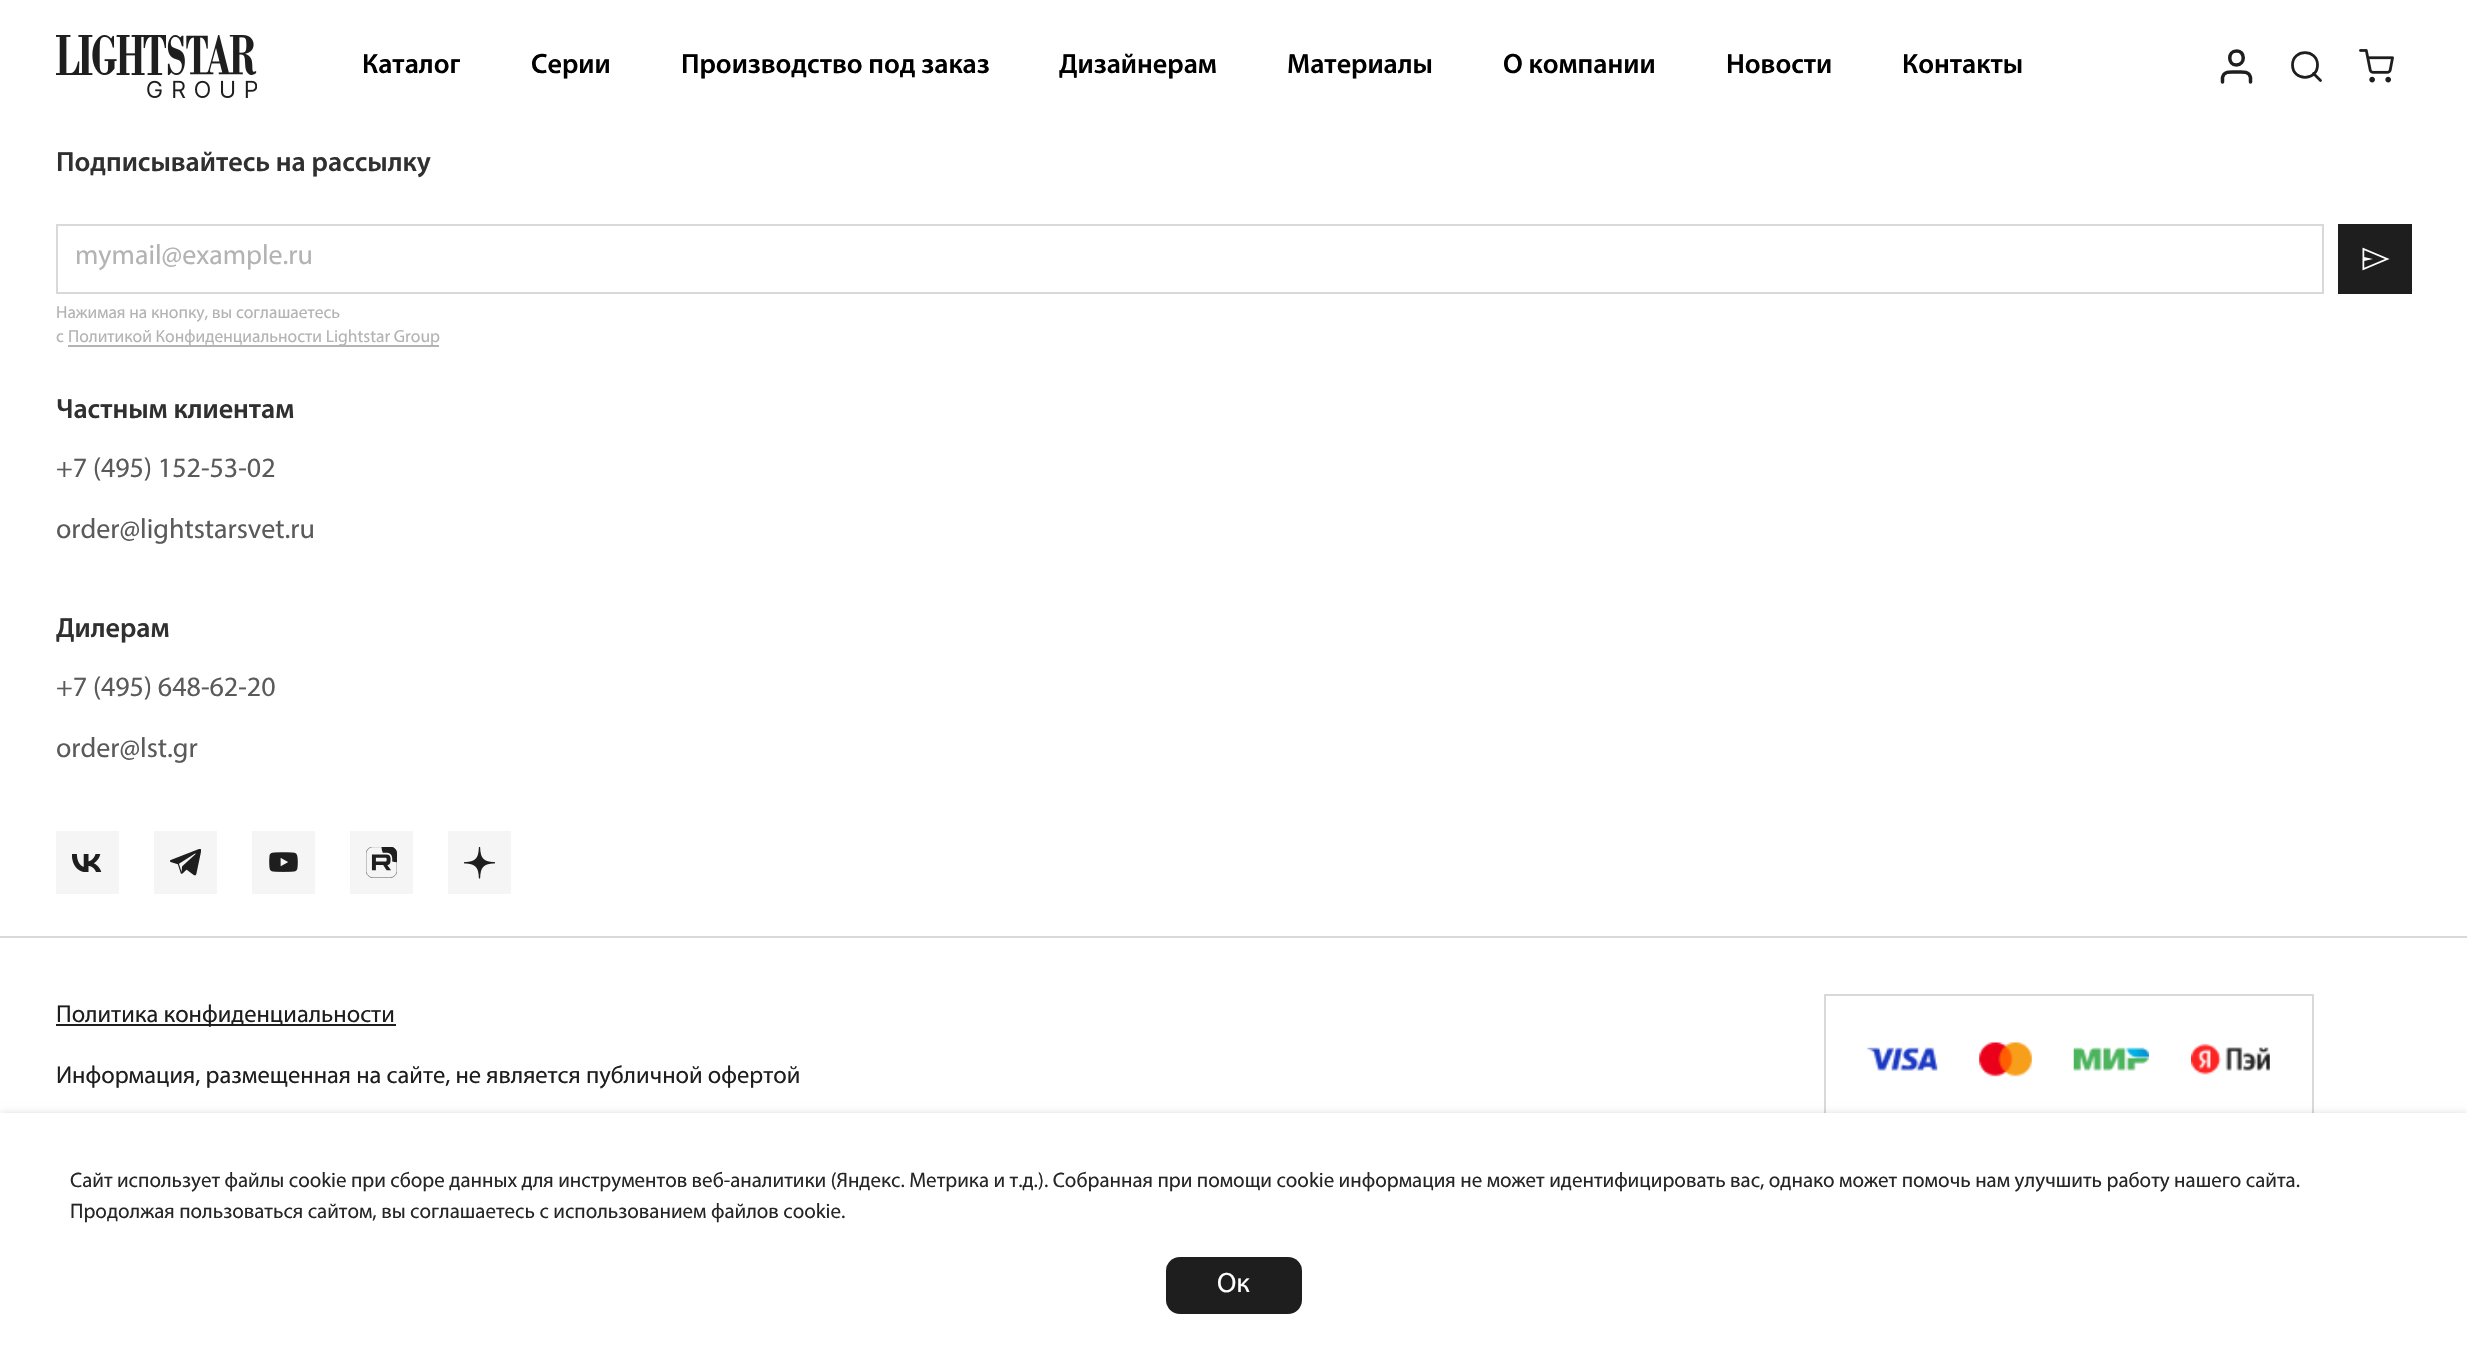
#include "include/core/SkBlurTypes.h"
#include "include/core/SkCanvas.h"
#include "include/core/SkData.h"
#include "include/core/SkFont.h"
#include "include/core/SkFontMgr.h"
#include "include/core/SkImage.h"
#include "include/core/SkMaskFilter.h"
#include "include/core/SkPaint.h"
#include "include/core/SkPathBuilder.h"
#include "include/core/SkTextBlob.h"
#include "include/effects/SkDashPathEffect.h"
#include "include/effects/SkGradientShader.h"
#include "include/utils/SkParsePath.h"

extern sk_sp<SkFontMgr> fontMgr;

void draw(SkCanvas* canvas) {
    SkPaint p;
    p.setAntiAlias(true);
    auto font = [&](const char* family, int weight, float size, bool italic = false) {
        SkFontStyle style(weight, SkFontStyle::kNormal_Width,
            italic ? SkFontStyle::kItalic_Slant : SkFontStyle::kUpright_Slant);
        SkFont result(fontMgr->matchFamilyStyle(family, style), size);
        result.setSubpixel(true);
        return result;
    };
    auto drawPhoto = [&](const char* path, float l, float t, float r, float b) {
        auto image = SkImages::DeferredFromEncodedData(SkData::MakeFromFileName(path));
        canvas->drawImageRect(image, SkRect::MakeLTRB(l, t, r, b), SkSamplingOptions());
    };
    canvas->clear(0xFFFFFFFF);
    drawPhoto("media/1.png", 56, 35, 257, 98);
    canvas->save();
    canvas->clipRect(SkRect::MakeLTRB(362, 0, 460, 131));
    auto font1 = font("Myriad", 600, 28);
    p.setColor(0xFF000000);
    canvas->drawString("Каталог", 362, 73, font1, p);
    canvas->restore();
    {
        const struct { const char* s; float x, y; } items[] = {
            {"Серии", 531, 73},
            {"Производство под заказ", 681, 73},
            {"Дизайнерам", 1059, 73},
            {"Материалы", 1287, 73},
            {"О компании", 1503, 73},
            {"Новости", 1726, 73},
            {"Контакты", 1902, 73},
        };
        for (auto [s, x, y] : items) {
            canvas->drawString(s, x, y, font1, p);
        }
    }
    p.setStyle(SkPaint::kStroke_Style);
    p.setStrokeWidth(3.5f);
    p.setStrokeCap(SkPaint::kRound_Cap);
    p.setStrokeJoin(SkPaint::kRound_Join);
    p.setColor(0xFF1E1E1E);
    canvas->drawPath(SkPathBuilder().moveTo(2250.5f, 82).lineTo(2250.5f, 77.5f).cubicTo(2249, 70.5f, 2241.5f, 72, 2236.5f, 72).cubicTo(2231.5f, 72, 2224, 70.5f, 2222.5f, 77.5f).lineTo(2222.5f, 82).moveTo(2236.5f, 65).cubicTo(2245.5f, 65, 2245.5f, 50.5f, 2236.5f, 51).cubicTo(2227.5f, 51, 2227.5f, 65, 2236.5f, 65).close().detach(), p);
    p.setStrokeWidth(2.8f);
    canvas->drawPath(SkPathBuilder().moveTo(2320.5f, 80.5f).lineTo(2313.5f, 73.5f).moveTo(2317.5f, 65).cubicTo(2317.5f, 81.5f, 2292.5f, 81.5f, 2292.5f, 65).cubicTo(2292.5f, 48.5f, 2317.5f, 48.5f, 2317.5f, 65).close().detach(), p);
    drawPhoto("media/2.png", 2359, 49, 2394, 83);
    p.setStyle(SkPaint::kFill_Style);
    p.setColor(0xFF303030);
    canvas->drawString("Подписывайтесь на рассылку", 56, 171, font1, p);
    p.setStyle(SkPaint::kStroke_Style);
    p.setStrokeWidth(2);
    p.setStrokeCap(SkPaint::kButt_Cap);
    p.setStrokeJoin(SkPaint::kMiter_Join);
    p.setColor(0xFFD9D9D9);
    canvas->drawRect(SkRect::MakeLTRB(57, 225, 2323, 293), p);
    auto font2 = font("Myriad", 400, 28);
    p.setStyle(SkPaint::kFill_Style);
    p.setColor(0xFFB3B3B3);
    canvas->drawString("mymail@example.ru", 75, 264, font2, p);
    p.setColor(0xFF1E1E1E);
    canvas->drawRect(SkRect::MakeLTRB(2338, 224, 2412, 294), p);
    drawPhoto("media/3.png", 2362, 247, 2390, 271);
    auto font3 = font("Myriad", 400, 17.5f);
    p.setColor(0xFFB3B3B3);
    canvas->drawString("Нажимая на кнопку, вы соглашаетесь", 56, 318, font3, p);
    canvas->drawString("с", 56, 342, font3, p);
    canvas->drawRect(SkRect::MakeLTRB(68, 345, 439, 347), p);
    canvas->drawString("Политикой Конфиденциальности Lightstar Group", 68, 342, font3, p);
    p.setColor(0xFF303030);
    canvas->drawString("Частным клиентам", 56, 418, font1, p);
    p.setColor(0xFF5A5A5A);
    canvas->drawString("+7 (495) 152-53-02", 56, 477, font2, p);
    canvas->drawString("order@lightstarsvet.ru", 56, 538, font2, p);
    p.setColor(0xFF303030);
    canvas->drawString("Дилерам", 56, 637, font1, p);
    p.setColor(0xFF5A5A5A);
    canvas->drawString("+7 (495) 648-62-20", 56, 696, font2, p);
    canvas->drawString("order@lst.gr", 56, 757, font2, p);
    p.setColor(0xFFF5F5F5);
    canvas->drawRect(SkRect::MakeLTRB(56, 831, 119, 894), p);
    drawPhoto("media/4.png", 72, 854, 102, 872);
    canvas->drawRect(SkRect::MakeLTRB(154, 831, 217, 894), p);
    drawPhoto("media/5.png", 170, 849, 201, 876);
    canvas->drawRect(SkRect::MakeLTRB(252, 831, 315, 894), p);
    drawPhoto("media/6.png", 269, 852, 298, 872);
    canvas->drawRect(SkRect::MakeLTRB(350, 831, 413, 894), p);
    drawPhoto("media/7.png", 366, 847, 397, 878);
    canvas->drawRect(SkRect::MakeLTRB(448, 831, 511, 894), p);
    drawPhoto("media/8.png", 464, 847, 495, 879);
    p.setColor(0xFFD9D9D9);
    canvas->drawRect(SkRect::MakeLTRB(0, 936, 2467, 938), p);
    p.setColor(0xFF1E1E1E);
    canvas->drawRect(SkRect::MakeLTRB(56, 1024, 396, 1026), p);
    auto font4 = font("Myriad", 400, 24.5f);
    canvas->drawString("Политика конфиденциальности", 56, 1022, font4, p);
    canvas->drawString("Информация, размещенная на сайте, не является публичной офертой", 56, 1083, font4, p);
    p.setStyle(SkPaint::kStroke_Style);
    p.setColor(0xFFD9D9D9);
    canvas->drawRect(SkRect::MakeLTRB(1825, 995, 2313, 1124), p);
    drawPhoto("media/9.png", 1867, 1047, 1938, 1071);
    drawPhoto("media/10.png", 1979, 1042, 2032, 1077);
    drawPhoto("media/11.png", 2073, 1047, 2149, 1071);
    drawPhoto("media/12.png", 2191, 1043, 2270, 1075);
    p.setStyle(SkPaint::kFill_Style);
    p.setColor(0x33000000);
    p.setMaskFilter(SkMaskFilter::MakeBlur(kNormal_SkBlurStyle, 4.5f));
    canvas->drawRect(SkRect::MakeLTRB(0, 1115, 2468, 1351), p);
    p.setMaskFilter(nullptr);
    p.setColor(0xFFFFFFFF);
    canvas->drawRect(SkRect::MakeLTRB(0, 1113, 2467, 1349), p);
    auto font5 = font("Myriad", 400, 21);
    p.setColor(0xFF262626);
    canvas->drawString("Сайт использует файлы cookie при сборе данных для инструментов веб-аналитики (Яндекс. Метрика и т.д.). Собранная при помощи cookie информация не может идентифицировать вас, однако может помочь нам улучшить работу нашего сайта.", 70, 1187, font5, p);
    canvas->drawString("Продолжая пользоваться сайтом, вы соглашаетесь с использованием файлов cookie.", 70, 1218, font5, p);
    p.setColor(0xFF1E1E1E);
    canvas->drawRoundRect(SkRect::MakeLTRB(1166, 1257, 1302, 1314), 14, 14, p);
    p.setColor(0xFFFFFFFF);
    canvas->drawString("Ок", 1217, 1292, font2, p);
}
